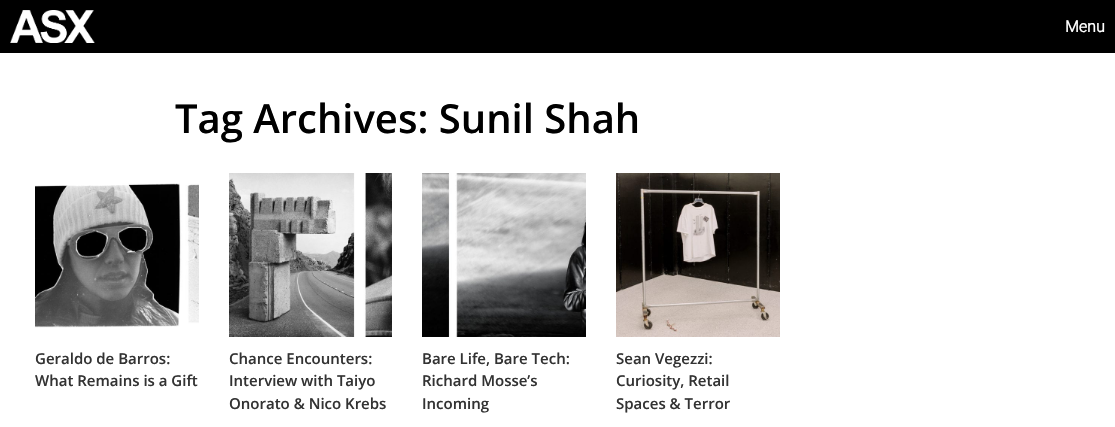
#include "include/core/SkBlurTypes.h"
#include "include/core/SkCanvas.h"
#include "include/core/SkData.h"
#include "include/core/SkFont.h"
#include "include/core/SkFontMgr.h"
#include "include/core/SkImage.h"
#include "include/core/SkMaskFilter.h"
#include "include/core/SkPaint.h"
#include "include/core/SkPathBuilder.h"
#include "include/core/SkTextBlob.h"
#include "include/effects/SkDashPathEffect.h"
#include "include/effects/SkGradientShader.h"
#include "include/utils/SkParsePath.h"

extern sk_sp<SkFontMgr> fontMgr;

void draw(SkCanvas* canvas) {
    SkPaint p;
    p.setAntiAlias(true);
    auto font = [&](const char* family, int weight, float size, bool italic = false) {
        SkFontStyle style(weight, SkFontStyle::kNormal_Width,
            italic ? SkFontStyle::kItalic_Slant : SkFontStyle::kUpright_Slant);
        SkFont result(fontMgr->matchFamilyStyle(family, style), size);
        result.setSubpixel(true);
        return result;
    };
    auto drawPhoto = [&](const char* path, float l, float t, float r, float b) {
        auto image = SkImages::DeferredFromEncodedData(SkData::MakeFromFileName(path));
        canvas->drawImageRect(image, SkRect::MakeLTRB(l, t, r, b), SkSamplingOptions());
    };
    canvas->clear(0xFFFFFFFF);
    p.setColor(0xFF000000);
    canvas->drawRect(SkRect::MakeLTRB(0, 0, 1115, 53), p);
    drawPhoto("media/1.png", 10, 10, 95, 43);
    auto font1 = font("Roboto", 700, 16);
    p.setColor(0xFFFFFFFF);
    canvas->drawString("Menu", 1065, 32, font1, p);
    auto font2 = font("Open Sans", 600, 40);
    p.setColor(0xFF000000);
    canvas->drawString("Tag Archives: Sunil Shah", 175, 133, font2, p);
    drawPhoto("media/2.png", 35, 183, 199, 328);
    auto font3 = font("Open Sans", 600, 15);
    p.setColor(0xFF333333);
    canvas->drawString("Geraldo de Barros:", 35, 364, font3, p);
    canvas->drawString("What Remains is a Gift", 35, 386, font3, p);
    drawPhoto("media/3.png", 229, 173, 392, 337);
    {
        const struct { const char* s; float x, y; } items[] = {
            {"Chance Encounters:", 229, 364},
            {"Interview with Taiyo", 229, 386},
            {"Onorato & Nico Krebs", 229, 409},
        };
        for (auto [s, x, y] : items) {
            canvas->drawString(s, x, y, font3, p);
        }
    }
    drawPhoto("media/4.png", 422, 173, 586, 337);
    {
        const struct { const char* s; float x, y; } items[] = {
            {"Bare Life, Bare Tech:", 422, 364},
            {"Richard Mosse’s", 422, 386},
            {"Incoming", 422, 409},
        };
        for (auto [s, x, y] : items) {
            canvas->drawString(s, x, y, font3, p);
        }
    }
    drawPhoto("media/5.png", 616, 173, 780, 337);
    {
        const struct { const char* s; float x, y; } items[] = {
            {"Sean Vegezzi:", 616, 364},
            {"Curiosity, Retail", 616, 386},
            {"Spaces & Terror", 616, 409},
        };
        for (auto [s, x, y] : items) {
            canvas->drawString(s, x, y, font3, p);
        }
    }
}
